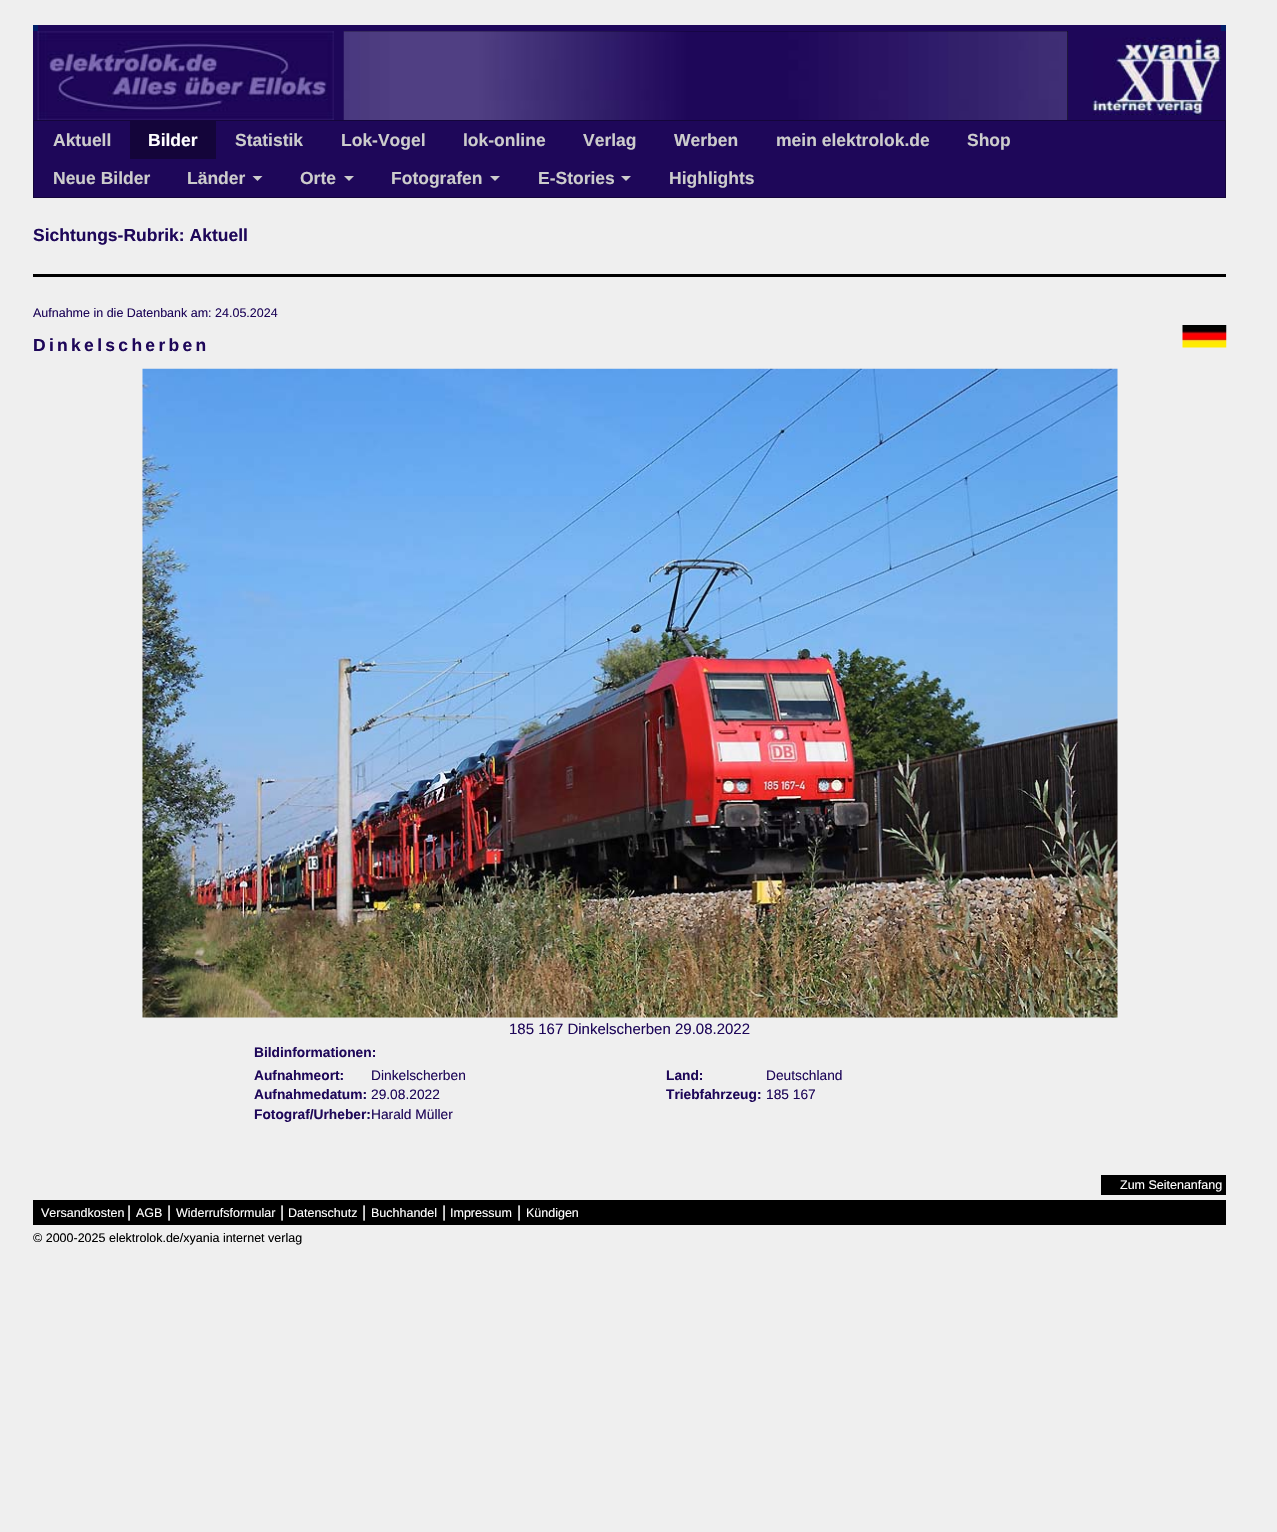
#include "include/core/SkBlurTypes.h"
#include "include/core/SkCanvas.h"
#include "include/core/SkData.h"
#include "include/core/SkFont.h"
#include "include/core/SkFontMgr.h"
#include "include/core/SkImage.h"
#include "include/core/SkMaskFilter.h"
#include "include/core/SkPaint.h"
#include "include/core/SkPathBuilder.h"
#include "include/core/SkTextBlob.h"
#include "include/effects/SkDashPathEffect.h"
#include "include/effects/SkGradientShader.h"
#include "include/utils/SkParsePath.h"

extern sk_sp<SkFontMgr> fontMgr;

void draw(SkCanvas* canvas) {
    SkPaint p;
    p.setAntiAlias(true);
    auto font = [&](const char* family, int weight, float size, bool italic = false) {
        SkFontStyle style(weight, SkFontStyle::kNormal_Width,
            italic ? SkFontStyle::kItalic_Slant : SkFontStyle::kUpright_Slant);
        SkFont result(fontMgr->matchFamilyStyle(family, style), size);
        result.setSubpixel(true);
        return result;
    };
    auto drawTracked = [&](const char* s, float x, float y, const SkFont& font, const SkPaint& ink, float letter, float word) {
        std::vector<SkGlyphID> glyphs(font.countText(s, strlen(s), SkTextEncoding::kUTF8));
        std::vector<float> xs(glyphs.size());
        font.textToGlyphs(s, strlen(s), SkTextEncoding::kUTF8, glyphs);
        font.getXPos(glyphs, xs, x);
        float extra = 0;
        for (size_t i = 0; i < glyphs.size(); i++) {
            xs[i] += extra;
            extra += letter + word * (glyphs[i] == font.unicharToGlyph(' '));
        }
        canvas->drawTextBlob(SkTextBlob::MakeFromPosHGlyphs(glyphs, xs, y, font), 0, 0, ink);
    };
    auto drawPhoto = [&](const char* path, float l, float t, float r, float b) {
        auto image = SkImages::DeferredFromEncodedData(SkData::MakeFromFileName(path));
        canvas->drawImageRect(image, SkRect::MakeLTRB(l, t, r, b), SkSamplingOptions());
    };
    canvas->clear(0xFFEFEFEF);
    {
        const struct { float l, t, r, b; SkColor color; } items[] = {
            {33, 25, 38, 31, 0xFF011F68},
            {38, 25, 1221, 31, 0xFF1E0759},
            {1221, 25, 1226, 31, 0xFF011F68},
            {33, 31, 344, 120, 0xFF1E0759},
        };
        for (auto [l, t, r, b, color] : items) {
            p.setColor(color);
            canvas->drawRect(SkRect::MakeLTRB(l, t, r, b), p);
        }
    }
    drawPhoto("media/1.png", 37, 31, 334, 120);
    p.setColor(0xFF000000);
    canvas->drawRect(SkRect::MakeLTRB(344, 31, 1068, 120), p);
    drawPhoto("media/2.png", 343, 31, 1068, 120);
    p.setColor(0xFF1E0759);
    canvas->drawRect(SkRect::MakeLTRB(1068, 31, 1226, 120), p);
    drawPhoto("media/3.png", 1092, 37, 1222, 115);
    canvas->drawRect(SkRect::MakeLTRB(33.5f, 120.5f, 1225.5f, 197.5f), p);
    p.setStyle(SkPaint::kStroke_Style);
    p.setStrokeWidth(1);
    p.setColor(0xFF14053A);
    canvas->drawRect(SkRect::MakeLTRB(33.5f, 120.5f, 1225.5f, 197.5f), p);
    auto font1 = font("Liberation Sans", 700, 17.5f);
    p.setStyle(SkPaint::kFill_Style);
    p.setColor(0xFFCCCCCC);
    canvas->drawString("Aktuell", 53, 146, font1, p);
    p.setColor(0xFF14053A);
    canvas->drawRect(SkRect::MakeLTRB(130, 121, 216, 159), p);
    p.setColor(0xFFFFFFFF);
    canvas->drawString("Bilder", 148, 146, font1, p);
    p.setColor(0xFFCCCCCC);
    {
        const struct { const char* s; float x, y; } items[] = {
            {"Statistik", 235, 146},
            {"Lok-Vogel", 341, 146},
            {"lok-online", 463, 146},
            {"Verlag", 583, 146},
            {"Werben", 674, 146},
            {"mein elektrolok.de", 776, 146},
            {"Shop", 967, 146},
            {"Neue Bilder", 53, 184},
            {"Länder", 187, 184},
        };
        for (auto [s, x, y] : items) {
            canvas->drawString(s, x, y, font1, p);
        }
    }
    canvas->drawPath(SkPathBuilder().moveTo(252.5f, 176).lineTo(262.5f, 176).lineTo(257.5f, 181).close().detach(), p);
    canvas->drawString("Orte", 300, 184, font1, p);
    canvas->drawPath(SkPathBuilder().moveTo(344, 176).lineTo(354, 176).lineTo(349, 181).close().detach(), p);
    canvas->drawString("Fotografen", 391, 184, font1, p);
    canvas->drawPath(SkPathBuilder().moveTo(490, 176).lineTo(500, 176).lineTo(495, 181).close().detach(), p);
    canvas->drawString("E-Stories", 538, 184, font1, p);
    canvas->drawPath(SkPathBuilder().moveTo(621, 176).lineTo(631, 176).lineTo(626, 181).close().detach(), p);
    canvas->drawString("Highlights", 669, 184, font1, p);
    p.setColor(0xFF1E0759);
    canvas->drawString("Sichtungs-Rubrik: Aktuell", 33, 241, font1, p);
    p.setColor(0xFF000000);
    canvas->drawRect(SkRect::MakeLTRB(33, 274, 1226, 277), p);
    auto font2 = font("Liberation Sans", 400, 12.5f);
    p.setColor(0xFF1E0759);
    canvas->drawString("Aufnahme in die Datenbank am: 24.05.2024", 33, 317, font2, p);
    drawTracked("Dinkelscherben", 33, 351, font1, p, 3.3f, 0);
    drawPhoto("media/4.png", 1182, 325, 1227, 348);
    drawPhoto("media/5.png", 142, 368, 1118, 1018);
    auto font3 = font("Liberation Sans", 400, 15);
    canvas->drawString("185 167 Dinkelscherben 29.08.2022", 509, 1034, font3, p);
    auto font4 = font("Liberation Sans", 700, 13.75f);
    canvas->drawString("Bildinformationen:", 254, 1057, font4, p);
    canvas->drawString("Aufnahmeort:", 254, 1080, font4, p);
    auto font5 = font("Liberation Sans", 400, 13.75f);
    canvas->drawString("Dinkelscherben", 371, 1080, font5, p);
    canvas->drawString("Land:", 666, 1080, font4, p);
    canvas->drawString("Deutschland", 766, 1080, font5, p);
    canvas->drawString("Aufnahmedatum:", 254, 1099, font4, p);
    canvas->drawString("29.08.2022", 371, 1099, font5, p);
    canvas->drawString("Triebfahrzeug:", 666, 1099, font4, p);
    canvas->drawString("185 167", 766, 1099, font5, p);
    canvas->drawString("Fotograf/Urheber:", 254, 1119, font4, p);
    canvas->drawString("Harald Müller", 371, 1119, font5, p);
    p.setColor(0xFF000000);
    canvas->drawRect(SkRect::MakeLTRB(1101, 1175, 1226, 1195), p);
    p.setColor(0xFFFFFFFF);
    canvas->drawString("Zum Seitenanfang", 1120, 1189, font2, p);
    p.setColor(0xFF000000);
    canvas->drawRect(SkRect::MakeLTRB(33, 1200, 1226, 1225), p);
    p.setColor(0xFFFFFFFF);
    canvas->drawString("Versandkosten", 41, 1217, font2, p);
    auto font6 = font("Liberation Sans", 400, 16);
    canvas->drawString("|", 127, 1217, font6, p);
    canvas->drawString("AGB", 136, 1217, font2, p);
    canvas->drawString("|", 167, 1217, font6, p);
    canvas->drawString("Widerrufsformular", 176, 1217, font2, p);
    canvas->drawString("|", 280, 1217, font6, p);
    canvas->drawString("Datenschutz", 288, 1217, font2, p);
    canvas->drawString("|", 362, 1217, font6, p);
    canvas->drawString("Buchhandel", 371, 1217, font2, p);
    canvas->drawString("|", 442, 1217, font6, p);
    canvas->drawString("Impressum", 450, 1217, font2, p);
    canvas->drawString("|", 517, 1217, font6, p);
    canvas->drawString("Kündigen", 526, 1217, font2, p);
    p.setColor(0xFF000000);
    canvas->drawString("© 2000-2025 elektrolok.de/xyania internet verlag", 33, 1242, font2, p);
}
